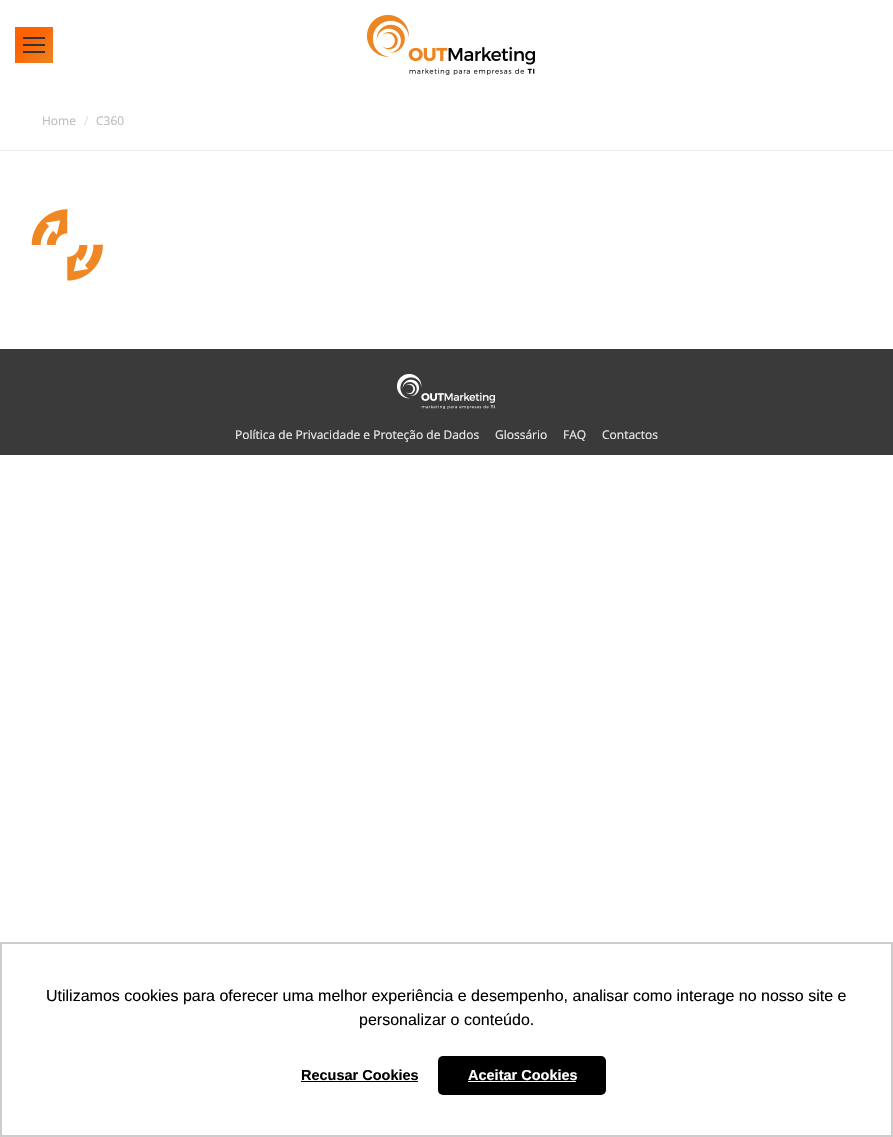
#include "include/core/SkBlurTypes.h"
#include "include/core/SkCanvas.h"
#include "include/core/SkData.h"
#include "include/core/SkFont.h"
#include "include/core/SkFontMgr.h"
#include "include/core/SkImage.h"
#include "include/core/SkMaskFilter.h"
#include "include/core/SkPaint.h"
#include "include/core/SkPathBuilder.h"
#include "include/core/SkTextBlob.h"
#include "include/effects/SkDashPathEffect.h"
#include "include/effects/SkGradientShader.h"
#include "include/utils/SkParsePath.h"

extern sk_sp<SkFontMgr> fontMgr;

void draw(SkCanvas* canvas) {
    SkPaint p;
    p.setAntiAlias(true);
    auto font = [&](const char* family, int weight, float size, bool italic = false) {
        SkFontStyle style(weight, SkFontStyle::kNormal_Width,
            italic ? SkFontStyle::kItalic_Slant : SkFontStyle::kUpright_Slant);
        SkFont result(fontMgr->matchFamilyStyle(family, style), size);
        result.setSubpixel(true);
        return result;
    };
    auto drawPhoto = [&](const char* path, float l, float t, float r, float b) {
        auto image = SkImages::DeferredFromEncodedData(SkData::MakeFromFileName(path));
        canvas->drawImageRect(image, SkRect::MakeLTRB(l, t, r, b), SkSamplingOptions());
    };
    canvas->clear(0xFFFFFFFF);
    {
        const SkColor colors[] = {0xFFFF6100, 0xFFED8623};
        const float stops[] = {0.3f, 1};
        const SkPoint ends[] = {{16, 27}, {53, 64}};
        p.setShader(SkGradientShader::MakeLinear(ends, colors, stops, 2, SkTileMode::kClamp));
        p.setAlpha(255);
    }
    canvas->drawRect(SkRect::MakeLTRB(15, 27, 53, 63), p);
    p.setShader(nullptr);
    {
        const struct { float l, t, r, b; SkColor color; } items[] = {
            {23, 37, 45, 39, 0xFF333333},
            {23, 44, 45, 46, 0xFF333333},
            {23, 51, 45, 53, 0xFF333333},
        };
        for (auto [l, t, r, b, color] : items) {
            p.setColor(color);
            canvas->drawRect(SkRect::MakeLTRB(l, t, r, b), p);
        }
    }
    drawPhoto("media/1.png", 367, 15, 535, 75);
    p.setColor(0xFFEEEEEE);
    canvas->drawRect(SkRect::MakeLTRB(0, 150, 893, 151), p);
    auto font1 = font("Open Sans", 400, 12);
    p.setColor(0xFFBCBCBC);
    canvas->drawString("Home", 42, 125, font1, p);
    p.setColor(0xFFDEDEDE);
    canvas->drawString("/", 84, 125, font1, p);
    p.setColor(0xFFBCBCBC);
    canvas->drawString("C360", 96, 125, font1, p);
    drawPhoto("media/2.png", 31, 209, 103, 281);
    p.setColor(0xFF3A3A3A);
    canvas->drawRect(SkRect::MakeLTRB(0, 349, 893, 455), p);
    drawPhoto("media/3.png", 397, 374, 495, 409);
    p.setColor(0xFFEEEEEE);
    {
        const struct { const char* s; float x, y; } items[] = {
            {"Política de Privacidade e Proteção de Dados", 235, 439},
            {"Glossário", 495, 439},
            {"FAQ", 563, 439},
            {"Contactos", 602, 439},
        };
        for (auto [s, x, y] : items) {
            canvas->drawString(s, x, y, font1, p);
        }
    }
    p.setStyle(SkPaint::kStroke_Style);
    p.setStrokeWidth(2);
    p.setColor(0xFFCCCCCC);
    canvas->drawRect(SkRect::MakeLTRB(1, 943, 892, 1136), p);
    auto font2 = font("Liberation Sans", 400, 16);
    p.setStyle(SkPaint::kFill_Style);
    p.setColor(0xFF000000);
    canvas->drawString("Utilizamos cookies para oferecer uma melhor experiência e desempenho, analisar como interage no nosso site e", 46, 1001, font2, p);
    canvas->drawString("personalizar o conteúdo.", 359, 1025, font2, p);
    auto font3 = font("Liberation Sans", 700, 14.5f);
    canvas->drawString("Recusar Cookies", 301, 1080, font3, p);
    canvas->drawRect(SkRect::MakeLTRB(301, 1081, 418, 1082), p);
    canvas->drawRoundRect(SkRect::MakeLTRB(438, 1056, 606, 1095), 5, 5, p);
    p.setColor(0xFFFFFFFF);
    canvas->drawString("Aceitar Cookies", 468, 1080, font3, p);
    canvas->drawRect(SkRect::MakeLTRB(468, 1081, 576, 1082), p);
}
